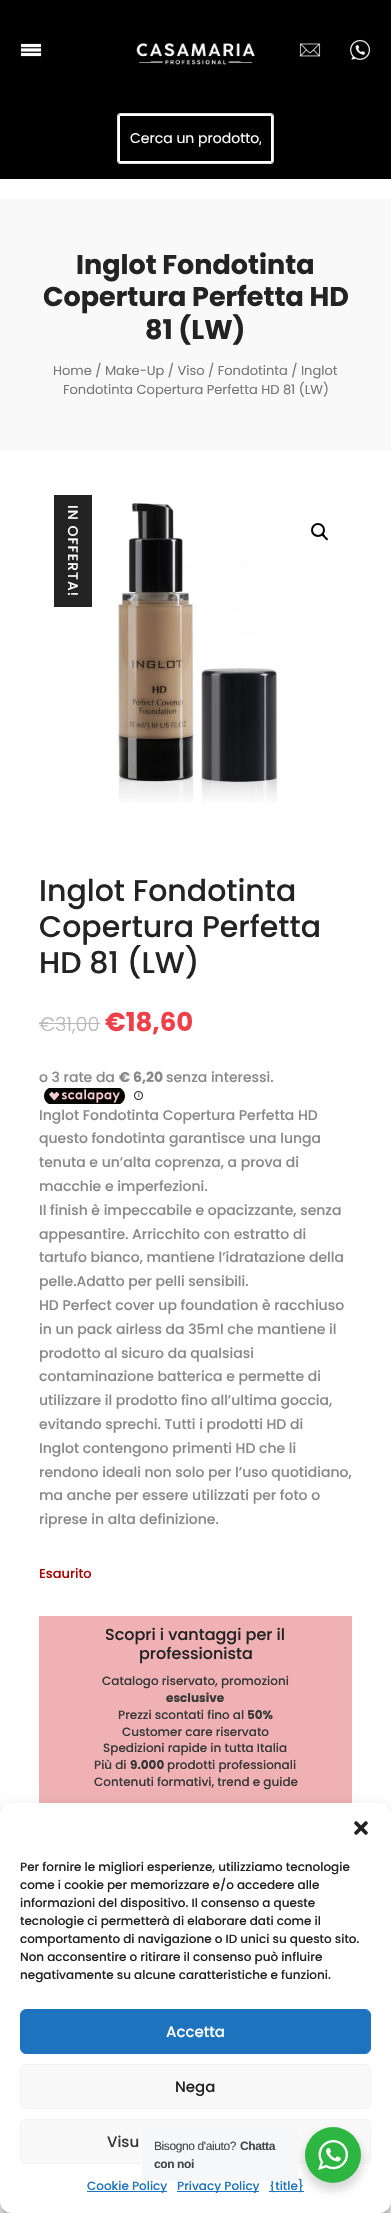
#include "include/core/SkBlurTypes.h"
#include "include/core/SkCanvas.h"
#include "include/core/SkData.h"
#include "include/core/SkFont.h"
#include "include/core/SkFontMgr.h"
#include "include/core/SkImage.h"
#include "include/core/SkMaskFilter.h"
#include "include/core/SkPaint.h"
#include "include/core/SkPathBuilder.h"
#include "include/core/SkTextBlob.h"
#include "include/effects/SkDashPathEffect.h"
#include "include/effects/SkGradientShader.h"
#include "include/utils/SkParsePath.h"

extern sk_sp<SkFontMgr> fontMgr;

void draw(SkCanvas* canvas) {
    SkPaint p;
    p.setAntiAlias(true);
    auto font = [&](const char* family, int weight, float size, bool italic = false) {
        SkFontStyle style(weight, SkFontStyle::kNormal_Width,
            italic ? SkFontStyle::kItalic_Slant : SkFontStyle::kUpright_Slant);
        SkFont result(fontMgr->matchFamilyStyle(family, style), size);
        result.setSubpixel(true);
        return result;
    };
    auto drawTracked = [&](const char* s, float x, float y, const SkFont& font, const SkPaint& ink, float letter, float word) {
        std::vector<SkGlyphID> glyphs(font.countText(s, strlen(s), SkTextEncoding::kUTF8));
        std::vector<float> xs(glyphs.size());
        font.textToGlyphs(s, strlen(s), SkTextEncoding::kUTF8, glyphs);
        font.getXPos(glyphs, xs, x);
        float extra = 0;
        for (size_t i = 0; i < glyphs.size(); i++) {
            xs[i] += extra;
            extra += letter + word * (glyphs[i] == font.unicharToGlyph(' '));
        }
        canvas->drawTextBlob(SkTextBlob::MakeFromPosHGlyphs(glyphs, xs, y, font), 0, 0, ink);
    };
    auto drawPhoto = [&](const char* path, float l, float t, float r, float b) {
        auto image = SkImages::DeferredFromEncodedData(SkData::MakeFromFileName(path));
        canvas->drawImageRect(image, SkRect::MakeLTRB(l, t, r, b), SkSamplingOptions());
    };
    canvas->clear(0xFFFFFFFF);
    p.setColor(0xFF000000);
    canvas->drawRect(SkRect::MakeLTRB(0, 0, 391, 179), p);
    drawPhoto("media/1.png", 20, 43, 42, 57);
    drawPhoto("media/2.png", 136, 43, 255, 65);
    drawPhoto("media/3.png", 299, 43, 321, 57);
    drawPhoto("media/4.png", 350, 39, 371, 60);
    p.setStyle(SkPaint::kStroke_Style);
    p.setStrokeWidth(1);
    p.setColor(0xFFDDDDDD);
    canvas->drawRoundRect(SkRect::MakeLTRB(117.5f, 113.5f, 273.5f, 163.5f), 2.5f, 2.5f, p);
    p.setStyle(SkPaint::kFill_Style);
    p.setColor(0xFFFFFFFF);
    canvas->drawPath(SkPathBuilder(SkPathFillType::kEvenOdd).moveTo(120, 114).cubicTo(119, 114, 118, 115, 118, 116).lineTo(118, 161).cubicTo(118, 162, 119, 163, 120, 163).lineTo(271, 163).cubicTo(272, 163, 273, 162, 273, 161).lineTo(273, 116).cubicTo(273, 115, 272, 114, 271, 114).close().moveTo(120, 116).lineTo(120, 161).lineTo(271, 161).lineTo(271, 116).close().detach(), p);
    canvas->save();
    canvas->clipRect(SkRect::MakeLTRB(130, 128, 261, 149));
    auto font1 = font("Poppins", 400, 14);
    canvas->drawString("Cerca un prodotto,", 130, 143, font1, p);
    canvas->restore();
    p.setColor(0xFFF9F9F9);
    canvas->drawRect(SkRect::MakeLTRB(0, 199, 391, 450), p);
    auto font2 = font("Poppins", 700, 27);
    p.setColor(0xFF232323);
    {
        const struct { const char* s; float x, y; } items[] = {
            {"Inglot Fondotinta", 76, 274},
            {"Copertura Perfetta HD", 43, 306},
            {"81 (LW)", 145, 339},
        };
        for (auto [s, x, y] : items) {
            canvas->drawString(s, x, y, font2, p);
        }
    }
    auto font3 = font("Poppins", 400, 13);
    p.setColor(0xFF767676);
    canvas->drawString("Home / Make-Up / Viso / Fondotinta / Inglot", 53, 375, font3, p);
    canvas->drawString("Fondotinta Copertura Perfetta HD 81 (LW)", 63, 394, font3, p);
    p.setColor(0xFF232323);
    canvas->drawRect(SkRect::MakeLTRB(54, 495, 92, 607), p);
    auto font4 = font("Poppins", 500, 14);
    p.setColor(0xFFFFFFFF);
    canvas->save();
    canvas->rotate(90, 68, 505);
    drawTracked("IN OFFERTA!", 68, 505, font4, p, 1, 0);
    canvas->restore();
    drawPhoto("media/5.png", 114, 503, 278, 803);
    p.setStyle(SkPaint::kStroke_Style);
    p.setStrokeWidth(2);
    p.setColor(0xFF000000);
    canvas->drawCircle(318, 530, 6, p);
    p.setStyle(SkPaint::kFill_Style);
    canvas->drawPath(SkPathBuilder().moveTo(322, 534).cubicTo(323.5f, 533, 325, 535.5f, 325.5f, 536.5f).cubicTo(326, 537, 329, 538.5f, 327.5f, 540).cubicTo(326.5f, 541, 325, 538.5f, 324, 537.5f).cubicTo(323.5f, 537, 321, 535.5f, 322, 534).close().detach(), p);
    auto font5 = font("Poppins", 500, 30);
    p.setColor(0xFF232323);
    {
        const struct { const char* s; float x, y; } items[] = {
            {"Inglot Fondotinta", 39, 901},
            {"Copertura Perfetta", 39, 937},
            {"HD 81 (LW)", 39, 973},
        };
        for (auto [s, x, y] : items) {
            canvas->drawString(s, x, y, font5, p);
        }
    }
    auto font6 = font("Poppins", 300, 19.5f);
    p.setColor(0xFFB8B8B8);
    canvas->drawString("€31,00", 39, 1031, font6, p);
    canvas->drawRect(SkRect::MakeLTRB(39, 1023, 100, 1024), p);
    auto font7 = font("Poppins", 700, 26);
    p.setColor(0xFFEF3F49);
    canvas->drawString("€18,60", 105, 1031, font7, p);
    p.setColor(0xFF888888);
    canvas->drawString("o 3 rate da", 39, 1082, font4, p);
    auto font8 = font("Poppins", 700, 14);
    canvas->drawString("€ 6,20", 119, 1082, font8, p);
    canvas->drawString("senza interessi.", 166, 1082, font4, p);
    drawPhoto("media/6.png", 44, 1088, 125, 1104);
    drawPhoto("media/7.png", 134, 1091, 143, 1100);
    {
        const struct { const char* s; float x, y; } items[] = {
            {"Inglot Fondotinta Copertura Perfetta HD", 39, 1120},
            {"questo fondotinta garantisce una lunga", 39, 1143},
            {"tenuta e un’alta coprenza, a prova di", 39, 1167},
            {"macchie e imperfezioni.", 39, 1191},
            {"Il finish è impeccabile e opacizzante, senza", 39, 1215},
            {"appesantire. Arricchito con estratto di", 39, 1239},
            {"tartufo bianco, mantiene l’idratazione della", 39, 1262},
            {"pelle.Adatto per pelli sensibili.", 39, 1286},
            {"HD Perfect cover up foundation è racchiuso", 39, 1310},
            {"in un pack airless da 35ml che mantiene il", 39, 1334},
            {"prodotto al sicuro da qualsiasi", 39, 1358},
            {"contaminazione batterica e permette di", 39, 1381},
            {"utilizzare il prodotto fino all’ultima goccia,", 39, 1405},
            {"evitando sprechi. Tutti i prodotti HD di", 39, 1429},
            {"Inglot contengono primenti HD che li", 39, 1453},
            {"rendono ideali non solo per l’uso quotidiano,", 39, 1477},
            {"ma anche per essere utilizzati per foto o", 39, 1500},
            {"riprese in alta definizione.", 39, 1524},
        };
        for (auto [s, x, y] : items) {
            canvas->drawString(s, x, y, font4, p);
        }
    }
    auto font9 = font("Poppins", 500, 13);
    p.setColor(0xFFAA0000);
    canvas->drawString("Esaurito", 39, 1578, font9, p);
    p.setColor(0xFFEFB1B4);
    canvas->drawRect(SkRect::MakeLTRB(39, 1616, 352, 1803), p);
    auto font10 = font("Poppins", 500, 16);
    p.setColor(0xFF232323);
    canvas->drawString("Scopri i vantaggi per il", 105, 1640, font10, p);
    canvas->drawString("professionista", 139, 1659, font10, p);
    auto font11 = font("Poppins", 500, 12);
    p.setColor(0xFF383838);
    canvas->drawString("Catalogo riservato, promozioni", 102, 1685, font11, p);
    auto font12 = font("Poppins", 700, 12);
    canvas->drawString("esclusive", 166, 1702, font12, p);
    canvas->drawString("Prezzi scontati fino al", 118, 1719, font11, p);
    canvas->drawString("50%", 247, 1719, font12, p);
    {
        const struct { const char* s; float x, y; } items[] = {
            {"Customer care riservato", 122, 1736},
            {"Spedizioni rapide in tutta Italia", 103, 1752},
            {"Più di", 94, 1769},
        };
        for (auto [s, x, y] : items) {
            canvas->drawString(s, x, y, font11, p);
        }
    }
    canvas->drawString("9.000", 130, 1769, font12, p);
    canvas->drawString("prodotti professionali", 167, 1769, font11, p);
    canvas->drawString("Contenuti formativi, trend e guide", 94, 1786, font11, p);
    p.setColor(0x3B000000);
    p.setMaskFilter(SkMaskFilter::MakeBlur(kNormal_SkBlurStyle, 3));
    canvas->drawRoundRect(SkRect::MakeLTRB(0, 1809, 391, 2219), 12, 12, p);
    p.setMaskFilter(nullptr);
    p.setColor(0x30000000);
    p.setMaskFilter(SkMaskFilter::MakeBlur(kNormal_SkBlurStyle, 10));
    canvas->drawRoundRect(SkRect::MakeLTRB(0, 1813, 391, 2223), 12, 12, p);
    p.setMaskFilter(nullptr);
    p.setColor(0xFFFFFFFF);
    canvas->drawRoundRect(SkRect::MakeLTRB(0, 1803, 391, 2213), 12, 12, p);
    drawPhoto("media/8.png", 354, 1821, 368, 1835);
    p.setColor(0xFF232323);
    {
        const struct { const char* s; float x, y; } items[] = {
            {"Per fornire le migliori esperienze, utilizziamo tecnologie", 20, 1871},
            {"come i cookie per memorizzare e/o accedere alle", 20, 1889},
            {"informazioni del dispositivo. Il consenso a queste", 20, 1907},
            {"tecnologie ci permetterà di elaborare dati come il", 20, 1925},
            {"comportamento di navigazione o ID unici su questo sito.", 20, 1943},
            {"Non acconsentire o ritirare il consenso può influire", 20, 1961},
            {"negativamente su alcune caratteristiche e funzioni.", 20, 1979},
        };
        for (auto [s, x, y] : items) {
            canvas->drawString(s, x, y, font11, p);
        }
    }
    p.setColor(0xFF1E73BE);
    canvas->drawRoundRect(SkRect::MakeLTRB(20.5f, 2009.5f, 370.5f, 2053.5f), 5.5f, 5.5f, p);
    p.setStyle(SkPaint::kStroke_Style);
    p.setStrokeWidth(1);
    canvas->drawRoundRect(SkRect::MakeLTRB(20.5f, 2009.5f, 370.5f, 2053.5f), 5.5f, 5.5f, p);
    auto font13 = font("Poppins", 500, 15);
    p.setStyle(SkPaint::kFill_Style);
    p.setColor(0xFFFFFFFF);
    canvas->drawString("Accetta", 166, 2037, font13, p);
    p.setColor(0xFFF9F9F9);
    canvas->drawRoundRect(SkRect::MakeLTRB(20.5f, 2064.5f, 370.5f, 2108.5f), 5.5f, 5.5f, p);
    p.setStyle(SkPaint::kStroke_Style);
    p.setColor(0xFFF2F2F2);
    canvas->drawRoundRect(SkRect::MakeLTRB(20.5f, 2064.5f, 370.5f, 2108.5f), 5.5f, 5.5f, p);
    p.setStyle(SkPaint::kFill_Style);
    p.setColor(0xFF232323);
    canvas->drawString("Nega", 175, 2092, font13, p);
    p.setColor(0xFFF9F9F9);
    canvas->drawRoundRect(SkRect::MakeLTRB(20.5f, 2119.5f, 370.5f, 2163.5f), 5.5f, 5.5f, p);
    p.setStyle(SkPaint::kStroke_Style);
    p.setColor(0xFFF2F2F2);
    canvas->drawRoundRect(SkRect::MakeLTRB(20.5f, 2119.5f, 370.5f, 2163.5f), 5.5f, 5.5f, p);
    p.setStyle(SkPaint::kFill_Style);
    p.setColor(0xFF383838);
    canvas->drawString("Visu", 107, 2147, font13, p);
    p.setColor(0xFF1E73BE);
    canvas->drawRect(SkRect::MakeLTRB(87, 2191, 167, 2192), p);
    canvas->drawString("Cookie Policy", 87, 2190, font11, p);
    canvas->drawRect(SkRect::MakeLTRB(177, 2191, 259, 2192), p);
    canvas->drawString("Privacy Policy", 177, 2190, font11, p);
    canvas->drawRect(SkRect::MakeLTRB(269, 2191, 304, 2192), p);
    canvas->drawString("{title}", 269, 2190, font11, p);
    p.setColor(0x24000000);
    p.setMaskFilter(SkMaskFilter::MakeBlur(kNormal_SkBlurStyle, 4));
    canvas->drawRoundRect(SkRect::MakeLTRB(303, 2131, 363, 2191), 30, 30, p);
    p.setMaskFilter(nullptr);
    p.setColor(0xFFF5F7F9);
    canvas->drawRoundRect(SkRect::MakeLTRB(142, 2129, 298, 2181), 4, 4, p);
    auto font14 = font("Liberation Sans", 400, 12);
    p.setColor(0xFF43474E);
    drawTracked("Bisogno d'aiuto?", 154, 2150, font14, p, -0.4f, 0);
    auto font15 = font("Liberation Sans", 700, 12);
    drawTracked("Chatta", 240, 2150, font15, p, -0.4f, 0);
    drawTracked("con noi", 154, 2168, font15, p, -0.4f, 0);
    p.setColor(0xFF2DB742);
    canvas->drawCircle(333, 2155, 28, p);
    drawPhoto("media/9.png", 318, 2140, 348, 2170);
}
